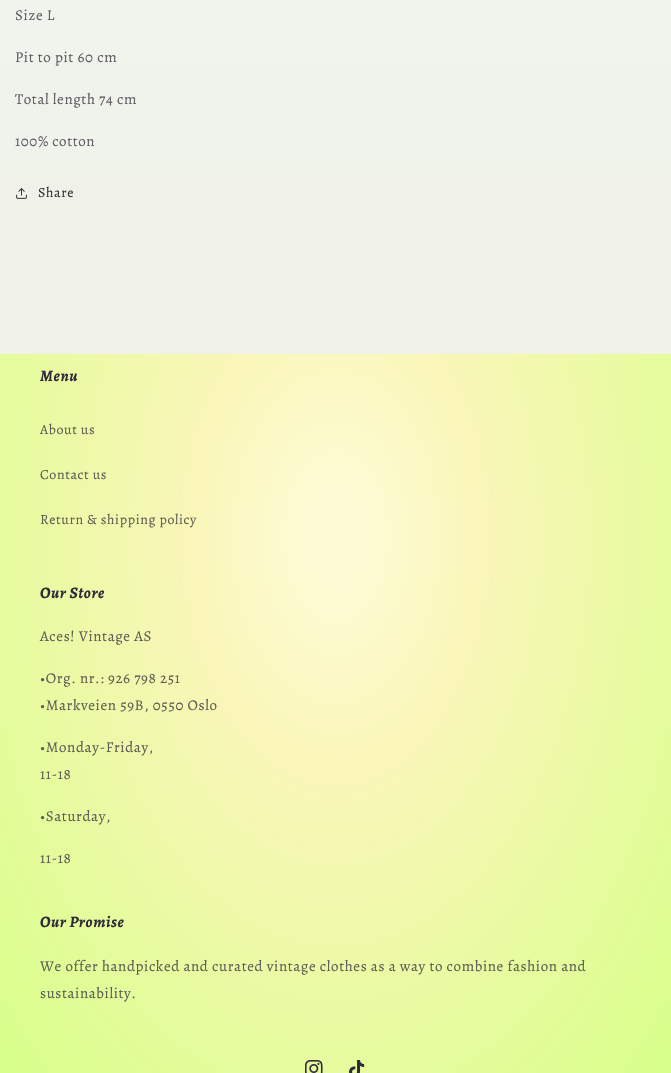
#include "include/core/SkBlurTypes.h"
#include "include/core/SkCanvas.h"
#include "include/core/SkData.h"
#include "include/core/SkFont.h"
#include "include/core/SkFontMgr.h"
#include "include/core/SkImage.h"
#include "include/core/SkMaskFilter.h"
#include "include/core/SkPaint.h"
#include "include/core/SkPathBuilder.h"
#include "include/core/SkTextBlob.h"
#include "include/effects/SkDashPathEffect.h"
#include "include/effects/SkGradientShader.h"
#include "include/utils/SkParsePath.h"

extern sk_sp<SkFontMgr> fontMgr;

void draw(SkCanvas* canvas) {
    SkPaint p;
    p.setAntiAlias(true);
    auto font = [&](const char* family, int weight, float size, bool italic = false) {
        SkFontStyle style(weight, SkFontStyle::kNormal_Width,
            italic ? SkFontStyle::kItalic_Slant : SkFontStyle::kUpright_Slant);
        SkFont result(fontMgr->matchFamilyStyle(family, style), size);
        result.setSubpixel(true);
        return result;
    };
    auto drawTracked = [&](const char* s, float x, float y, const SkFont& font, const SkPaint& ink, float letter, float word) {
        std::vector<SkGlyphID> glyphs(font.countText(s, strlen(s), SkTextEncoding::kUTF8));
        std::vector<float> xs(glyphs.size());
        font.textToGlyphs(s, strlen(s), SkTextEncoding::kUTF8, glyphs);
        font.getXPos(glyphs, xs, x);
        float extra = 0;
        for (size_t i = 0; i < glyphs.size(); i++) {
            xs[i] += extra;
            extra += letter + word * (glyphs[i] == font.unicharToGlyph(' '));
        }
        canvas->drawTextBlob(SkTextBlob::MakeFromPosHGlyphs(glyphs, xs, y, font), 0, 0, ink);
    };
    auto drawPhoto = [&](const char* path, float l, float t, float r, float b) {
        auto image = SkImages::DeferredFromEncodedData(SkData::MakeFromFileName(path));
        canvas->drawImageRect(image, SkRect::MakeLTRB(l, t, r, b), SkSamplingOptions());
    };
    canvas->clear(0xFFFFFFFF);
    {
        const SkColor colors[] = {0xFFF0F4EC, 0xFFF1EBE2};
        const float stops[] = {0, 1};
        const SkPoint ends[] = {{335, 0}, {336, 1073}};
        p.setShader(SkGradientShader::MakeLinear(ends, colors, stops, 2, SkTileMode::kClamp));
        p.setAlpha(255);
    }
    canvas->drawRect(SkRect::MakeLTRB(0, 0, 671, 354), p);
    auto font1 = font("Alegreya", 400, 15);
    p.setShader(nullptr);
    p.setColor(0xFF5F5D66);
    {
        const struct { const char* s; float x, y; } items[] = {
            {"Size L", 15, 20},
            {"Pit to pit 60 cm", 15, 62},
            {"Total length 74 cm", 15, 104},
            {"100% cotton", 15, 146},
        };
        for (auto [s, x, y] : items) {
            drawTracked(s, x, y, font1, p, 0.6f, 0);
        }
    }
    drawPhoto("media/1.png", 16, 188, 27, 199);
    auto font2 = font("Alegreya", 400, 14);
    p.setColor(0xFF333333);
    drawTracked("Share", 38, 197, font2, p, 0.6f, 0);
    {
        const SkColor colors[] = {0xFFFDFBD5, 0xFFFAF6B9, 0xFFD7FF89};
        const float stops[] = {0.05f, 0.3f, 1};
        SkMatrix m = SkMatrix::Translate(336, 537).preScale(474, 759);
        p.setShader(SkGradientShader::MakeRadial({0, 0}, 1, colors, stops, 3, SkTileMode::kClamp, 0, &m));
        p.setAlpha(255);
    }
    canvas->drawRect(SkRect::MakeLTRB(0, 354, 671, 1073), p);
    auto font3 = font("Alegreya", 700, 16, true);
    p.setShader(nullptr);
    p.setColor(0xFF2E2A39);
    drawTracked("Menu", 40, 381, font3, p, 0.6f, 0);
    p.setColor(0xFF5D5E54);
    {
        const struct { const char* s; float x, y; } items[] = {
            {"About us", 40, 434},
            {"Contact us", 40, 479},
            {"Return & shipping policy", 40, 524},
        };
        for (auto [s, x, y] : items) {
            drawTracked(s, x, y, font2, p, 0.6f, 0);
        }
    }
    p.setColor(0xFF2E2A39);
    drawTracked("Our Store", 40, 598, font3, p, 0.6f, 0);
    p.setColor(0xFF5D5E54);
    {
        const struct { const char* s; float x, y; } items[] = {
            {"Aces! Vintage AS", 40, 641},
            {"•Org. nr.: 926 798 251", 40, 683},
            {"•Markveien 59B, 0550 Oslo", 40, 710},
            {"•Monday-Friday,", 40, 752},
            {"11-18", 40, 779},
            {"•Saturday,", 40, 821},
            {"11-18", 40, 863},
        };
        for (auto [s, x, y] : items) {
            drawTracked(s, x, y, font1, p, 0.6f, 0);
        }
    }
    p.setColor(0xFF2E2A39);
    drawTracked("Our Promise", 40, 927, font3, p, 0.6f, 0);
    p.setColor(0xFF5D5E54);
    drawTracked("We offer handpicked and curated vintage clothes as a way to combine fashion and", 40, 971, font1, p, 0.6f, 0);
    drawTracked("sustainability.", 40, 998, font1, p, 0.6f, 0);
    drawPhoto("media/2.png", 305, 1060, 323, 1073);
    drawPhoto("media/3.png", 349, 1060, 365, 1073);
}
